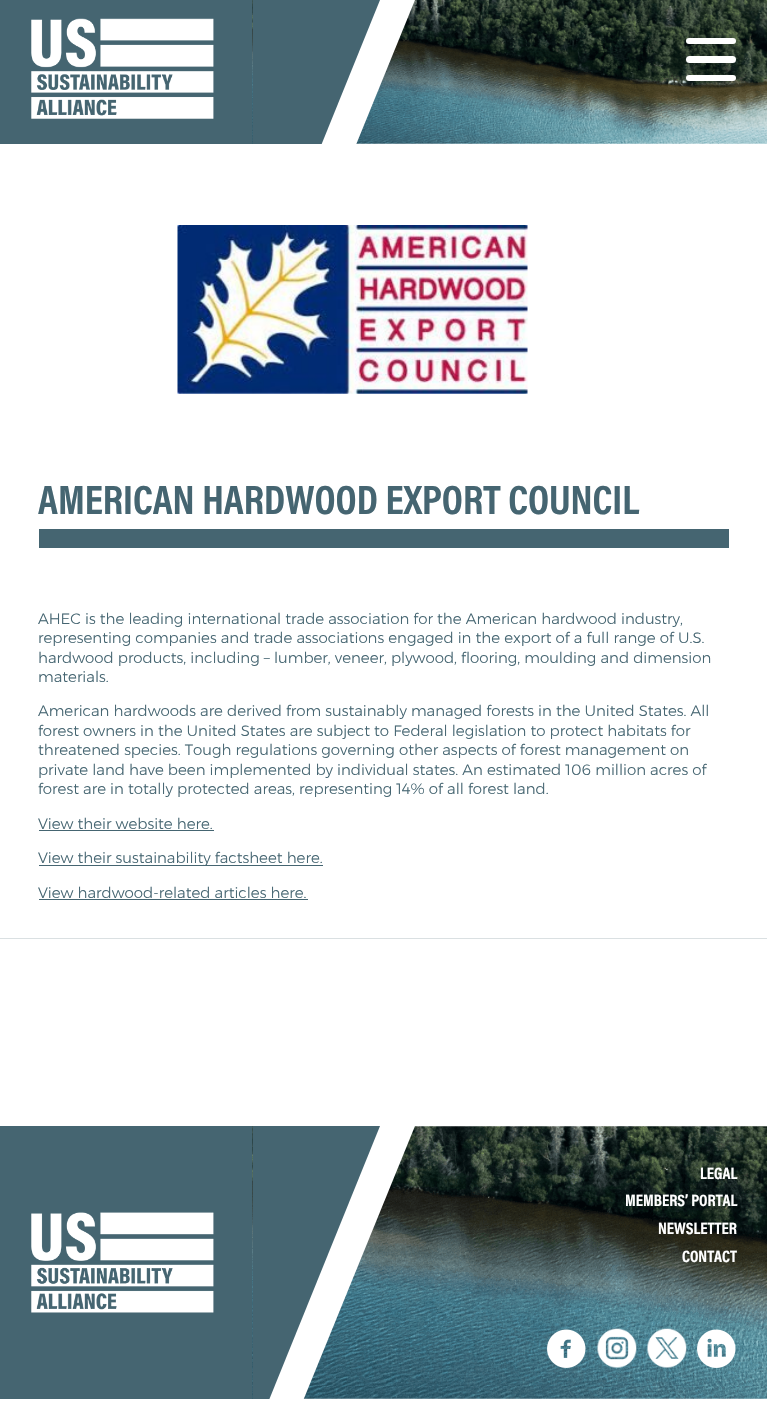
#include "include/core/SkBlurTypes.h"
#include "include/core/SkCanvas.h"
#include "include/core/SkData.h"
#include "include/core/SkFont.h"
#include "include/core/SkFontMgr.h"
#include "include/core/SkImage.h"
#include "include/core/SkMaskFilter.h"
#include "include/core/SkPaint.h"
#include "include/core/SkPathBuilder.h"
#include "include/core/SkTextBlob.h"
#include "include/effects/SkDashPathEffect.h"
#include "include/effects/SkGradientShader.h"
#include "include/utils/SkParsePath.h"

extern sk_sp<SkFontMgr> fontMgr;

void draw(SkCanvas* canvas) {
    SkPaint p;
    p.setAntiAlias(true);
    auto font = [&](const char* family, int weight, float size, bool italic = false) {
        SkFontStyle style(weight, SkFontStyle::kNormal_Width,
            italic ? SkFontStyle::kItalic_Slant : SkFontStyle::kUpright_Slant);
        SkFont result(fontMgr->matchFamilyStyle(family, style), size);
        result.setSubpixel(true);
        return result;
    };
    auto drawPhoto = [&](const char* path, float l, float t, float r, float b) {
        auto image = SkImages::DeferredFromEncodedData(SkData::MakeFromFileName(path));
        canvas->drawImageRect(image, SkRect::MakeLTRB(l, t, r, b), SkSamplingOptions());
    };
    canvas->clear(0xFFFFFFFF);
    p.setColor(0xFF456571);
    canvas->drawRect(SkRect::MakeLTRB(0, 0, 253, 144), p);
    drawPhoto("media/1.png", 31, 18, 214, 119);
    drawPhoto("media/2.png", 252, 0, 767, 144);
    canvas->save();
    canvas->clipRect(SkRect::MakeLTRB(253, 0, 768, 144));
    p.setColor(0xFFFFFFFF);
    canvas->drawPath(SkPathBuilder().moveTo(252, 0).lineTo(415, 0).lineTo(252, 400).close().detach(), p);
    p.setColor(0xFF456571);
    canvas->drawPath(SkPathBuilder().moveTo(218, 0).lineTo(380, 0).lineTo(218, 400).close().detach(), p);
    canvas->restore();
    p.setColor(0xFFFFFFFF);
    canvas->drawRoundRect(SkRect::MakeLTRB(686, 38, 736, 44), 3, 3, p);
    canvas->drawRoundRect(SkRect::MakeLTRB(686, 56, 736, 63), 3.5f, 3.5f, p);
    canvas->drawRoundRect(SkRect::MakeLTRB(686, 75, 736, 81), 3, 3, p);
    p.setColor(0xFFDAE0E2);
    canvas->drawRect(SkRect::MakeLTRB(0, 938, 767, 939), p);
    drawPhoto("media/3.png", 177, 225, 528, 394);
    p.setColor(0xFF456571);
    canvas->drawRect(SkRect::MakeLTRB(39, 529, 729, 548), p);
    auto font1 = font("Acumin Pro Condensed", 700, 41.25f);
    canvas->drawString("AMERICAN HARDWOOD EXPORT COUNCIL", 38, 514, font1, p);
    auto font2 = font("Montserrat", 300, 15);
    {
        const struct { const char* s; float x, y; } items[] = {
            {"AHEC is the leading international trade association for the American hardwood industry,", 38, 624},
            {"representing companies and trade associations engaged in the export of a full range of U.S.", 38, 643},
            {"hardwood products, including – lumber, veneer, plywood, flooring, moulding and dimension", 38, 663},
            {"materials.", 38, 682},
            {"American hardwoods are derived from sustainably managed forests in the United States. All", 38, 716},
            {"forest owners in the United States are subject to Federal legislation to protect habitats for", 38, 736},
            {"threatened species. Tough regulations governing other aspects of forest management on", 38, 755},
            {"private land have been implemented by individual states. An estimated 106 million acres of", 38, 775},
            {"forest are in totally protected areas, representing 14% of all forest land.", 38, 794},
            {"View their website here.", 38, 829},
        };
        for (auto [s, x, y] : items) {
            canvas->drawString(s, x, y, font2, p);
        }
    }
    canvas->drawRect(SkRect::MakeLTRB(39, 830, 214, 831), p);
    canvas->drawRect(SkRect::MakeLTRB(39, 865, 323, 866), p);
    canvas->drawString("View their sustainability factsheet here.", 38, 863, font2, p);
    canvas->drawString("View hardwood-related articles here.", 38, 898, font2, p);
    canvas->drawRect(SkRect::MakeLTRB(39, 899, 308, 900), p);
    canvas->drawRect(SkRect::MakeLTRB(0, 1126, 253, 1399), p);
    drawPhoto("media/4.png", 31, 1212, 214, 1313);
    drawPhoto("media/5.png", 252, 1126, 767, 1399);
    canvas->save();
    canvas->clipRect(SkRect::MakeLTRB(253, 1126, 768, 1399));
    p.setColor(0xFFFFFFFF);
    canvas->drawPath(SkPathBuilder().moveTo(252, 1126).lineTo(415, 1126).lineTo(252, 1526).close().detach(), p);
    p.setColor(0xFF456571);
    canvas->drawPath(SkPathBuilder().moveTo(218, 1126).lineTo(380, 1126).lineTo(218, 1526).close().detach(), p);
    canvas->restore();
    auto font3 = font("Acumin Pro Condensed", 700, 16.5f);
    p.setColor(0xFFFFFFFF);
    {
        const struct { const char* s; float x, y; } items[] = {
            {"LEGAL", 700, 1179},
            {"MEMBERS’ PORTAL", 625, 1206},
            {"NEWSLETTER", 658, 1234},
            {"CONTACT", 682, 1262},
        };
        for (auto [s, x, y] : items) {
            canvas->drawString(s, x, y, font3, p);
        }
    }
    drawPhoto("media/6.png", 547, 1329, 586, 1368);
    drawPhoto("media/7.png", 597, 1328, 637, 1368);
    drawPhoto("media/8.png", 647, 1328, 687, 1368);
    drawPhoto("media/9.png", 697, 1329, 736, 1368);
}
